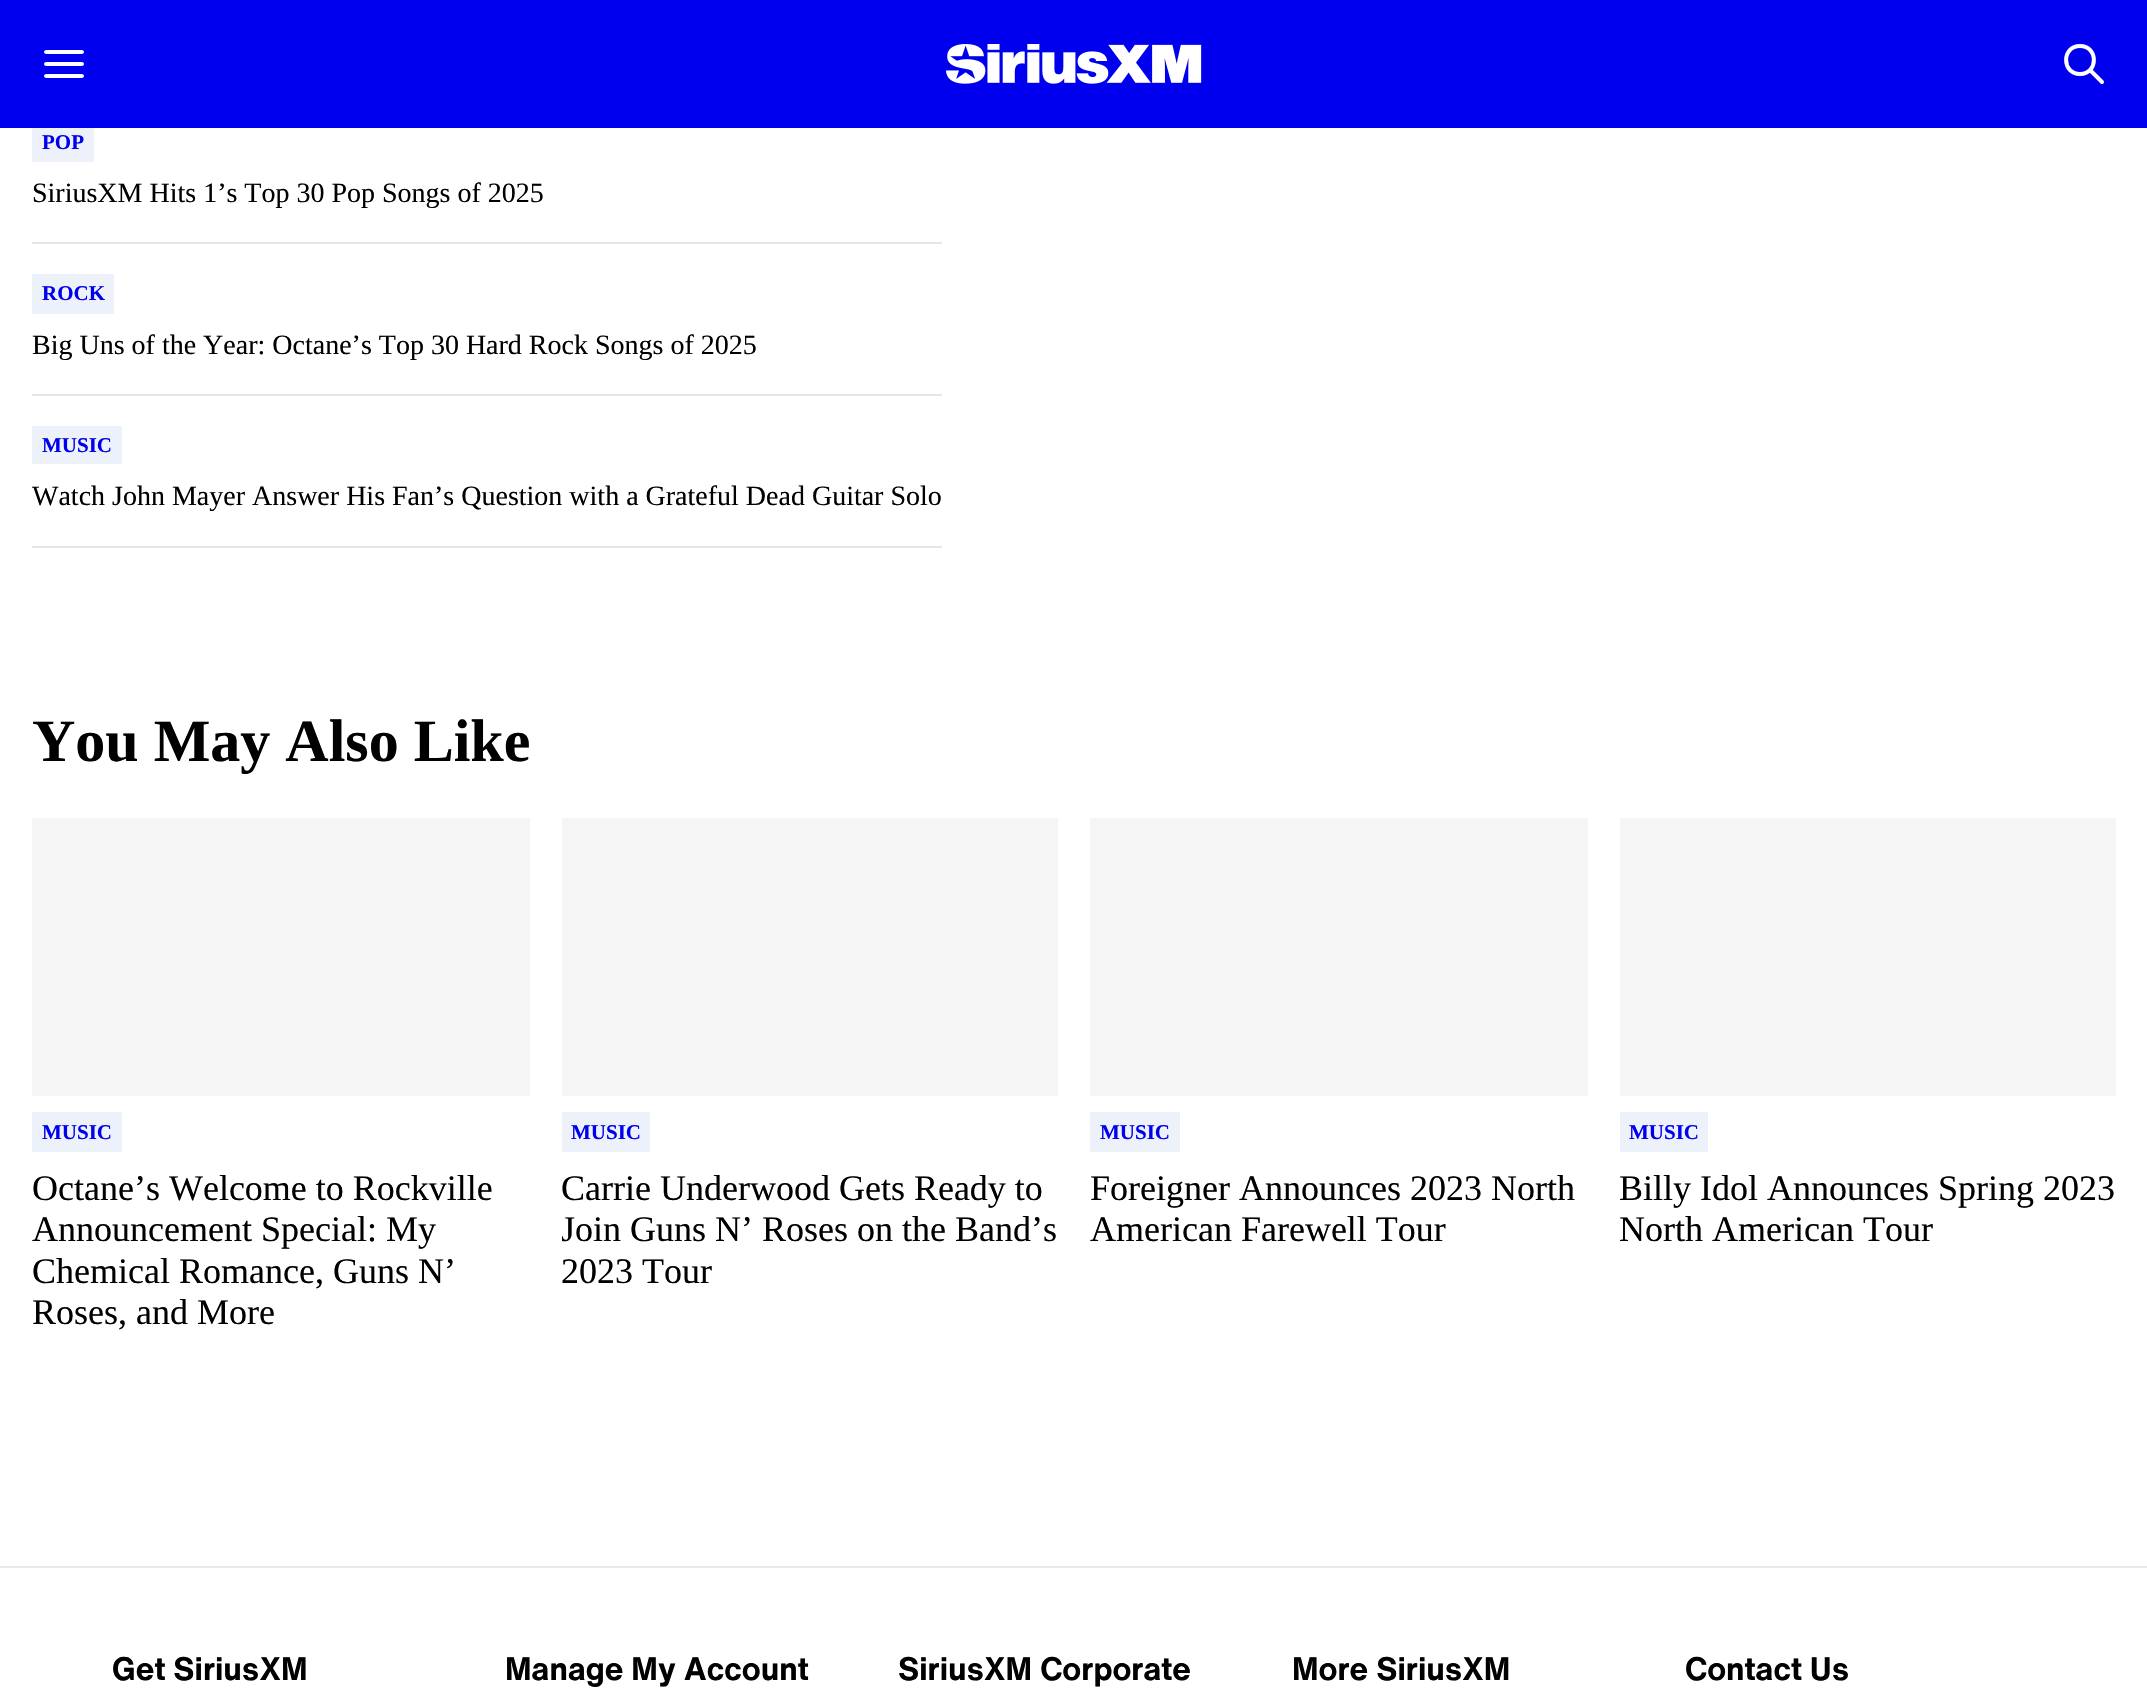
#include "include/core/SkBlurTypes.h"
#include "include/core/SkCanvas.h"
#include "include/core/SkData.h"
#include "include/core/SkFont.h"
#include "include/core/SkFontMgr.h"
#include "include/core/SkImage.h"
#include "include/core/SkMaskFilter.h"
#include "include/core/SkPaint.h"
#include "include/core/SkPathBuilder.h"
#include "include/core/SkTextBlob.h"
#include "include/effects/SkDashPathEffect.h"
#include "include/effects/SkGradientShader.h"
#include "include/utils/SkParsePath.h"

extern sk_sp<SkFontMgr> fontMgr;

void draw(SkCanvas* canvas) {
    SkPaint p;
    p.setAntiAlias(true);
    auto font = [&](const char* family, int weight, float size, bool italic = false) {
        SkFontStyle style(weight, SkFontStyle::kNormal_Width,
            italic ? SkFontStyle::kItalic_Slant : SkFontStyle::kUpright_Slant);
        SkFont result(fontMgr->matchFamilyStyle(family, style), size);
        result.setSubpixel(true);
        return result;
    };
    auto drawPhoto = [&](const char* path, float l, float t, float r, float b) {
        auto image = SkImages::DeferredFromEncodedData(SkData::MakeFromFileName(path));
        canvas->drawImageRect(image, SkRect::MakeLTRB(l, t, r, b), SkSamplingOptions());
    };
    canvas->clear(0xFFFFFFFF);
    p.setColor(0xFF0000EF);
    canvas->drawRect(SkRect::MakeLTRB(0, 0, 2147, 128), p);
    drawPhoto("media/1.png", 44, 50, 84, 78);
    drawPhoto("media/2.png", 946, 44, 1202, 84);
    p.setStyle(SkPaint::kStroke_Style);
    p.setStrokeWidth(4);
    p.setStrokeCap(SkPaint::kRound_Cap);
    p.setStrokeJoin(SkPaint::kRound_Join);
    p.setColor(0xFFFFFFFF);
    canvas->drawPath(SkPathBuilder().moveTo(2080, 74).cubicTo(2098.5f, 74, 2098.5f, 46, 2080, 46).cubicTo(2061.5f, 46, 2061.5f, 74, 2080, 74).close().moveTo(2102, 82).lineTo(2090, 70).detach(), p);
    p.setStyle(SkPaint::kFill_Style);
    p.setColor(0xFFE6E6E6);
    canvas->drawRect(SkRect::MakeLTRB(32, 242, 942, 244), p);
    p.setColor(0xFFECF1FA);
    canvas->drawRect(SkRect::MakeLTRB(32, 128, 94, 162), p);
    auto font1 = font("Liberation Serif", 700, 21);
    p.setColor(0xFF0000EF);
    canvas->drawString("POP", 42, 149, font1, p);
    auto font2 = font("Liberation Serif", 400, 28);
    p.setColor(0xFF000000);
    canvas->drawString("SiriusXM Hits 1’s Top 30 Pop Songs of 2025", 32, 202, font2, p);
    p.setColor(0xFFE6E6E6);
    canvas->drawRect(SkRect::MakeLTRB(32, 394, 942, 396), p);
    p.setColor(0xFFECF1FA);
    canvas->drawRect(SkRect::MakeLTRB(32, 274, 114, 314), p);
    p.setColor(0xFF0000EF);
    canvas->drawString("ROCK", 42, 300, font1, p);
    p.setColor(0xFF000000);
    canvas->drawString("Big Uns of the Year: Octane’s Top 30 Hard Rock Songs of 2025", 32, 354, font2, p);
    p.setColor(0xFFE6E6E6);
    canvas->drawRect(SkRect::MakeLTRB(32, 546, 942, 548), p);
    p.setColor(0xFFECF1FA);
    canvas->drawRect(SkRect::MakeLTRB(32, 426, 122, 464), p);
    p.setColor(0xFF0000EF);
    canvas->drawString("MUSIC", 42, 452, font1, p);
    p.setColor(0xFF000000);
    canvas->drawString("Watch John Mayer Answer His Fan’s Question with a Grateful Dead Guitar Solo", 32, 505, font2, p);
    auto font3 = font("Liberation Serif", 700, 60);
    canvas->drawString("You May Also Like", 32, 761, font3, p);
    p.setColor(0xFFF5F5F5);
    canvas->drawRect(SkRect::MakeLTRB(32, 818, 530, 1096), p);
    p.setColor(0xFFECF1FA);
    canvas->drawRect(SkRect::MakeLTRB(32, 1112, 122, 1152), p);
    p.setColor(0xFF0000EF);
    canvas->drawString("MUSIC", 42, 1139, font1, p);
    auto font4 = font("Liberation Serif", 400, 36);
    p.setColor(0xFF000000);
    {
        const struct { const char* s; float x, y; } items[] = {
            {"Octane’s Welcome to Rockville", 32, 1200},
            {"Announcement Special: My", 32, 1241},
            {"Chemical Romance, Guns N’", 32, 1283},
            {"Roses, and More", 32, 1324},
        };
        for (auto [s, x, y] : items) {
            canvas->drawString(s, x, y, font4, p);
        }
    }
    p.setColor(0xFFF5F5F5);
    canvas->drawRect(SkRect::MakeLTRB(562, 818, 1058, 1096), p);
    p.setColor(0xFFECF1FA);
    canvas->drawRect(SkRect::MakeLTRB(562, 1112, 650, 1152), p);
    p.setColor(0xFF0000EF);
    canvas->drawString("MUSIC", 571, 1139, font1, p);
    p.setColor(0xFF000000);
    canvas->drawString("Carrie Underwood Gets Ready to", 561, 1200, font4, p);
    canvas->save();
    canvas->clipRect(SkRect::MakeLTRB(562, 1168, 1058, 1292));
    canvas->drawString("Join Guns N’ Roses on the Band’s", 561, 1241, font4, p);
    canvas->restore();
    canvas->drawString("2023 Tour", 561, 1283, font4, p);
    p.setColor(0xFFF5F5F5);
    canvas->drawRect(SkRect::MakeLTRB(1090, 818, 1588, 1096), p);
    p.setColor(0xFFECF1FA);
    canvas->drawRect(SkRect::MakeLTRB(1090, 1112, 1180, 1152), p);
    p.setColor(0xFF0000EF);
    canvas->drawString("MUSIC", 1100, 1139, font1, p);
    p.setColor(0xFF000000);
    canvas->drawString("Foreigner Announces 2023 North", 1090, 1200, font4, p);
    canvas->drawString("American Farewell Tour", 1090, 1241, font4, p);
    p.setColor(0xFFF5F5F5);
    canvas->drawRect(SkRect::MakeLTRB(1620, 818, 2116, 1096), p);
    p.setColor(0xFFECF1FA);
    canvas->drawRect(SkRect::MakeLTRB(1620, 1112, 1708, 1152), p);
    p.setColor(0xFF0000EF);
    canvas->drawString("MUSIC", 1629, 1139, font1, p);
    p.setColor(0xFF000000);
    canvas->drawString("Billy Idol Announces Spring 2023", 1619, 1200, font4, p);
    canvas->drawString("North American Tour", 1619, 1241, font4, p);
    p.setColor(0xFFEAEAEA);
    canvas->drawRect(SkRect::MakeLTRB(0, 1566, 2147, 1568), p);
    auto font5 = font("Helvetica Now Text", 700, 32);
    p.setColor(0xFF000000);
    {
        const struct { const char* s; float x, y; } items[] = {
            {"Get SiriusXM", 112, 1680},
            {"Manage My Account", 505, 1680},
            {"SiriusXM Corporate", 898, 1680},
            {"More SiriusXM", 1292, 1680},
            {"Contact Us", 1685, 1680},
        };
        for (auto [s, x, y] : items) {
            canvas->drawString(s, x, y, font5, p);
        }
    }
}
